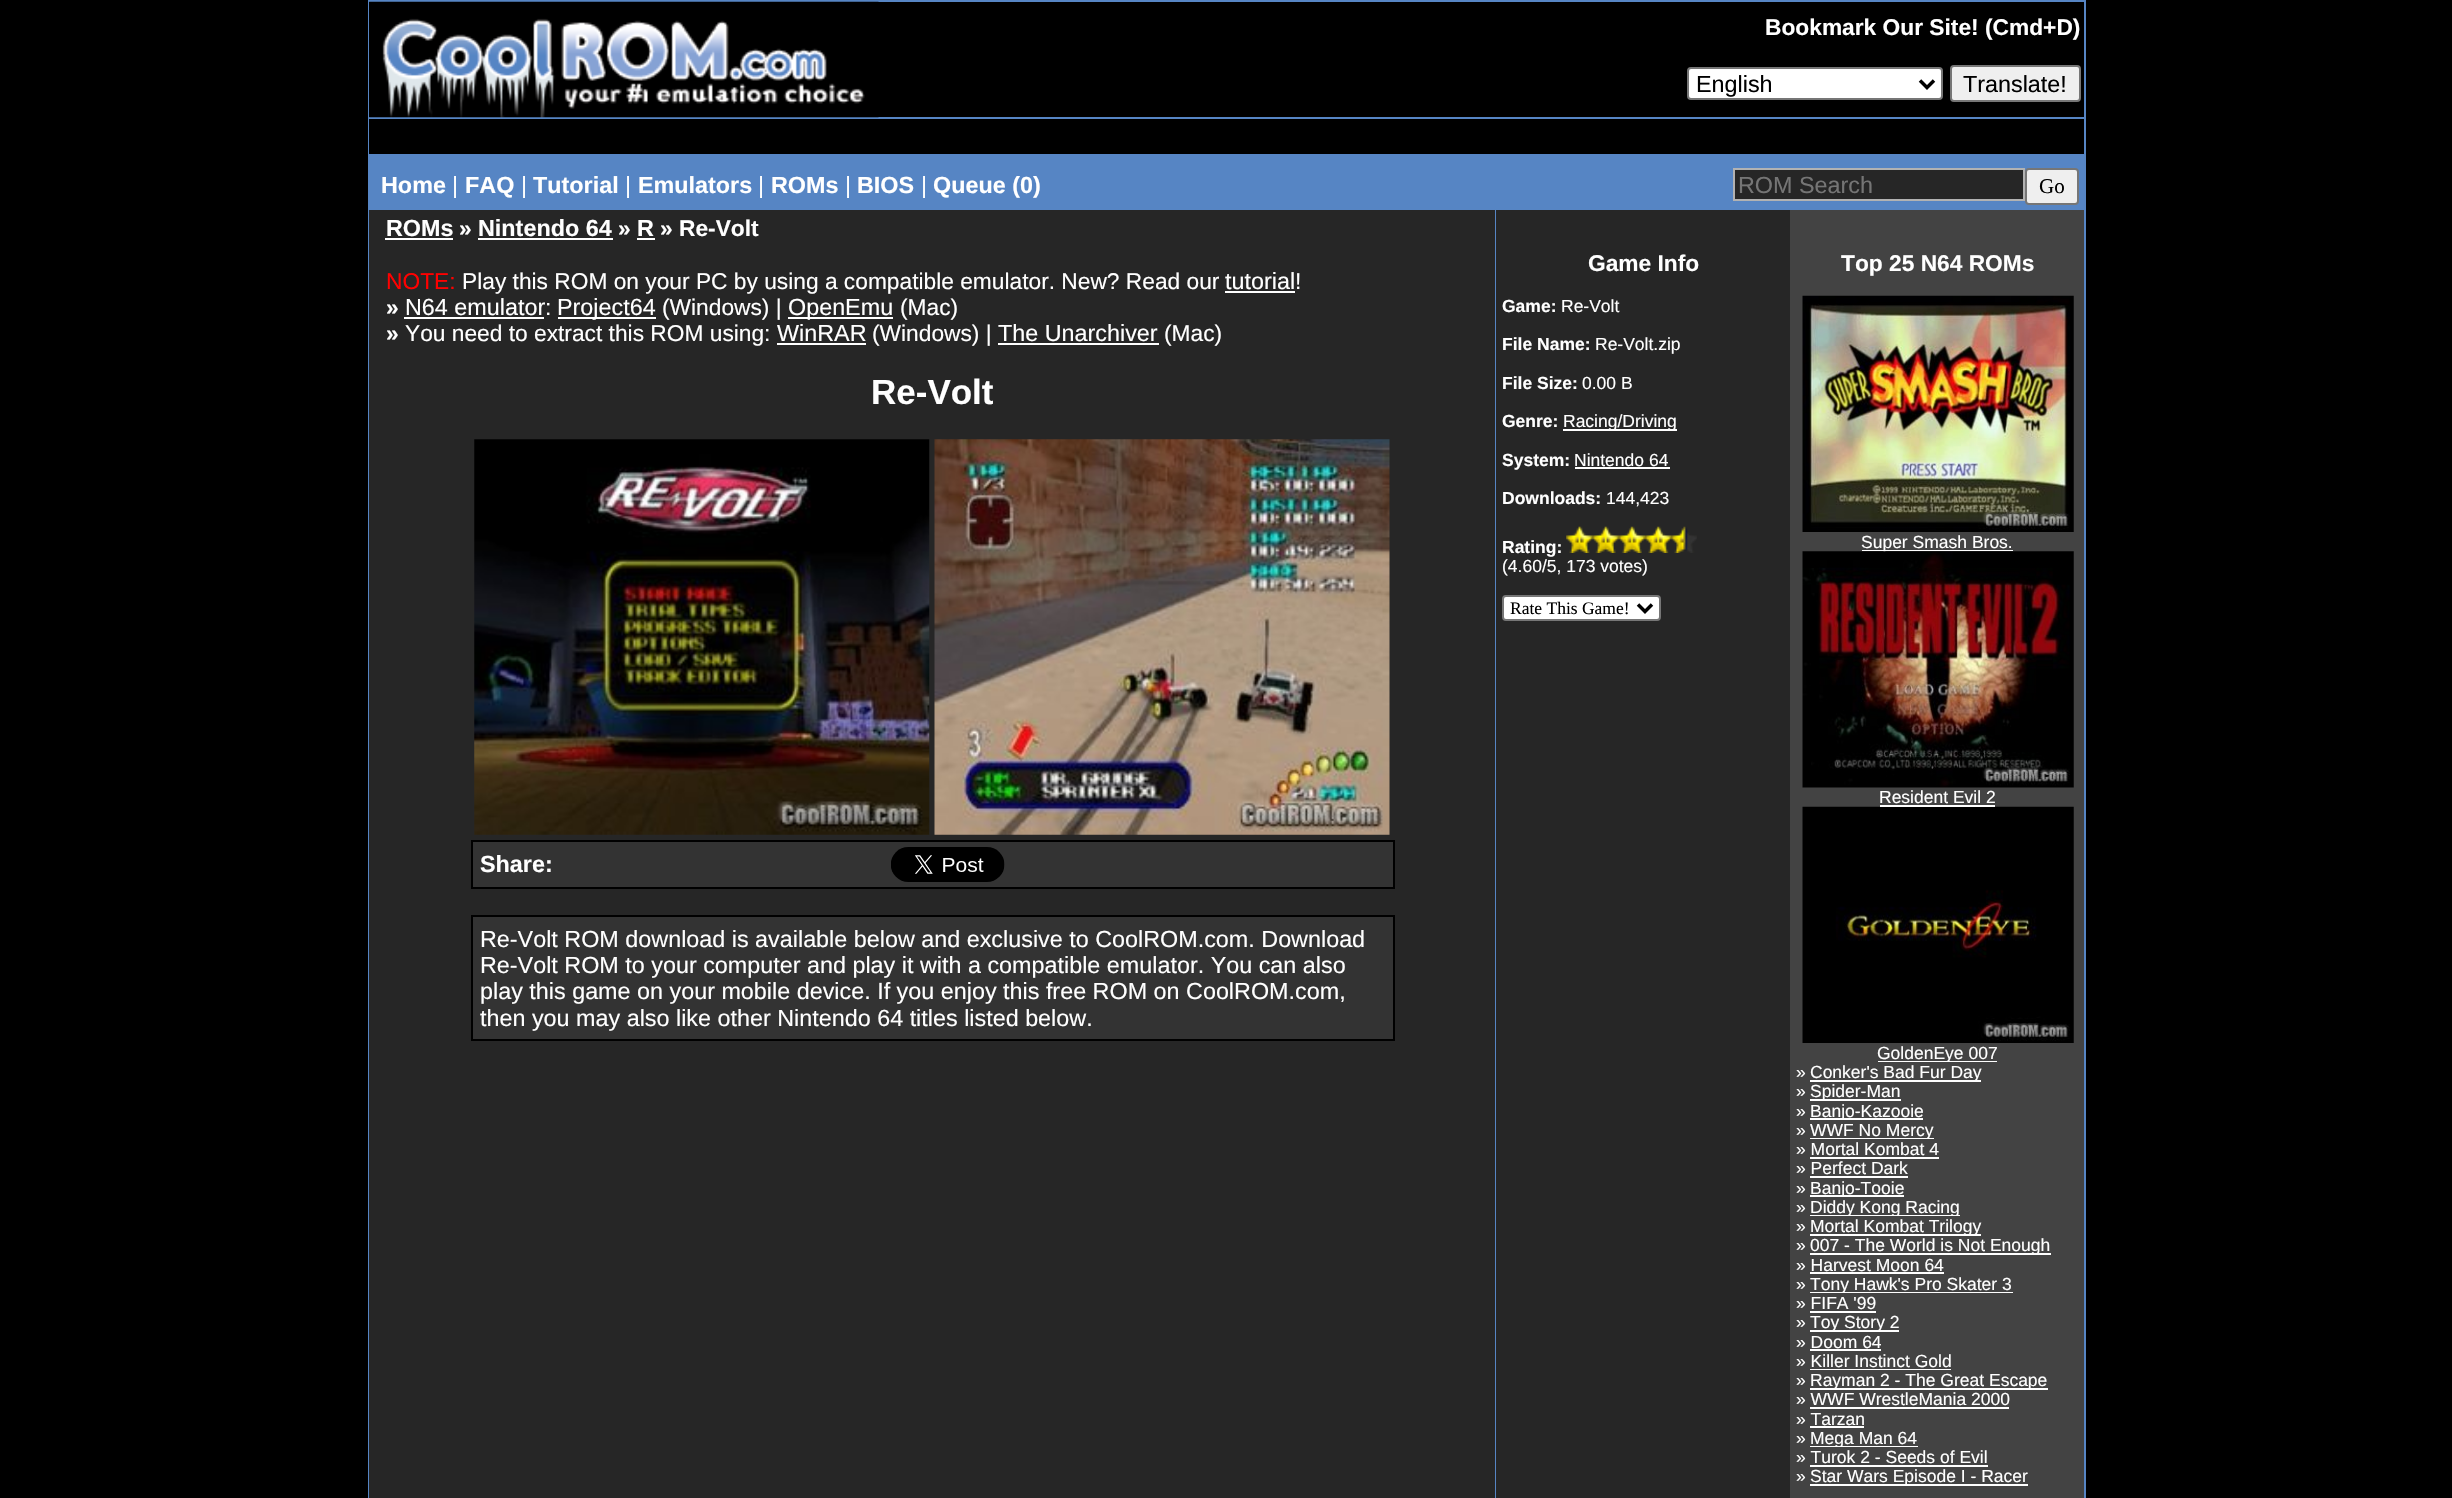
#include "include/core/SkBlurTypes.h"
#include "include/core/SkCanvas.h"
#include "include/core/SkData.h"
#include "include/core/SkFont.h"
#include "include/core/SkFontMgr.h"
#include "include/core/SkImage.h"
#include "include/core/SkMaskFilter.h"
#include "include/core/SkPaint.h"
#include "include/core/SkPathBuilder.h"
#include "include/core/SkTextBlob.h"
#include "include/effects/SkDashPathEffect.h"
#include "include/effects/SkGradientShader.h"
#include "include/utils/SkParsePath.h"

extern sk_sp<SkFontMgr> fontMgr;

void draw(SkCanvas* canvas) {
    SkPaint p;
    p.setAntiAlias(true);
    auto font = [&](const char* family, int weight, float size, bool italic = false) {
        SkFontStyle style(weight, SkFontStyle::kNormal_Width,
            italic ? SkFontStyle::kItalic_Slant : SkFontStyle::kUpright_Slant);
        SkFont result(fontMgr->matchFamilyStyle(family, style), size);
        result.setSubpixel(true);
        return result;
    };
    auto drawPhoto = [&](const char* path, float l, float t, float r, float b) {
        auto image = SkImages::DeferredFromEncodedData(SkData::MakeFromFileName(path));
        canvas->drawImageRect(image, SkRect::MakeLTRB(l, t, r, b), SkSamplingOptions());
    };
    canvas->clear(0xFF000000);
    p.setColor(0xFF5685C4);
    canvas->drawRect(SkRect::MakeLTRB(368, 0, 2086, 1498), p);
    p.setColor(0xFF000000);
    canvas->drawRect(SkRect::MakeLTRB(369, 2, 2084, 117), p);
    drawPhoto("media/1.png", 369, 1, 879, 118);
    auto font1 = font("Liberation Sans", 700, 22.75f);
    p.setColor(0xFFFFFFFF);
    canvas->drawString("Bookmark Our Site! (Cmd+D)", 1765, 35, font1, p);
    canvas->drawRoundRect(SkRect::MakeLTRB(1688, 68, 1942, 99), 3, 3, p);
    p.setStyle(SkPaint::kStroke_Style);
    p.setStrokeWidth(2);
    p.setColor(0xFF767676);
    canvas->drawRoundRect(SkRect::MakeLTRB(1688, 68, 1942, 99), 3, 3, p);
    p.setStrokeWidth(3.5f);
    p.setColor(0xFF000000);
    canvas->drawPath(SkPathBuilder().moveTo(1920, 80.5f).lineTo(1927, 87.5f).lineTo(1934, 80.5f).detach(), p);
    auto font2 = font("Liberation Sans", 400, 23.35f);
    p.setStyle(SkPaint::kFill_Style);
    canvas->drawString("English", 1696, 92, font2, p);
    p.setColor(0xFFEFEFEF);
    canvas->drawRoundRect(SkRect::MakeLTRB(1951, 66, 2080, 101), 3, 3, p);
    p.setStyle(SkPaint::kStroke_Style);
    p.setStrokeWidth(2);
    p.setColor(0xFF767676);
    canvas->drawRoundRect(SkRect::MakeLTRB(1951, 66, 2080, 101), 3, 3, p);
    p.setStyle(SkPaint::kFill_Style);
    p.setColor(0xFF000000);
    canvas->drawString("Translate!", 1963, 92, font2, p);
    canvas->drawRect(SkRect::MakeLTRB(369, 119, 2084, 154), p);
    auto font3 = font("Liberation Sans", 700, 23.35f);
    p.setColor(0xFFFFFFFF);
    canvas->drawString("Home", 381, 193, font3, p);
    canvas->drawString("|", 452, 193, font2, p);
    canvas->drawString("FAQ", 465, 193, font3, p);
    canvas->drawString("|", 521, 193, font2, p);
    canvas->drawString("Tutorial", 533, 193, font3, p);
    canvas->drawString("|", 625, 193, font2, p);
    canvas->drawString("Emulators", 638, 193, font3, p);
    canvas->drawString("|", 758, 193, font2, p);
    canvas->drawString("ROMs", 771, 193, font3, p);
    canvas->drawString("|", 845, 193, font2, p);
    canvas->drawString("BIOS", 857, 193, font3, p);
    canvas->drawString("|", 921, 193, font2, p);
    canvas->drawString("Queue (0)", 933, 193, font3, p);
    p.setColor(0xFF262626);
    canvas->drawRect(SkRect::MakeLTRB(1734, 169, 2024, 200), p);
    p.setStyle(SkPaint::kStroke_Style);
    p.setColor(0xFFB2B2B2);
    canvas->drawRect(SkRect::MakeLTRB(1734, 169, 2024, 200), p);
    p.setStyle(SkPaint::kFill_Style);
    p.setColor(0xFF757575);
    canvas->drawString("ROM Search", 1738, 193, font2, p);
    p.setColor(0xFFEFEFEF);
    canvas->drawRoundRect(SkRect::MakeLTRB(2026, 169, 2078, 204), 3, 3, p);
    p.setStyle(SkPaint::kStroke_Style);
    p.setColor(0xFF767676);
    canvas->drawRoundRect(SkRect::MakeLTRB(2026, 169, 2078, 204), 3, 3, p);
    auto font4 = font("Liberation Serif", 400, 21);
    p.setStyle(SkPaint::kFill_Style);
    p.setColor(0xFF000000);
    canvas->drawString("Go", 2039, 193, font4, p);
    p.setColor(0xFF262626);
    canvas->drawRect(SkRect::MakeLTRB(369, 210, 1495, 1498), p);
    p.setColor(0xFFFFFFFF);
    canvas->drawString("ROMs", 386, 236, font3, p);
    canvas->drawRect(SkRect::MakeLTRB(385, 238, 453, 240), p);
    canvas->drawString("»", 459, 236, font1, p);
    canvas->drawString("Nintendo 64", 478, 236, font3, p);
    canvas->drawRect(SkRect::MakeLTRB(478, 238, 613, 240), p);
    canvas->drawString("»", 618, 236, font1, p);
    canvas->drawString("R", 637, 236, font3, p);
    canvas->drawRect(SkRect::MakeLTRB(637, 238, 655, 240), p);
    canvas->drawString("» Re-Volt", 660, 236, font1, p);
    auto font5 = font("Liberation Sans", 400, 22.75f);
    p.setColor(0xFFFF0000);
    canvas->drawString("NOTE:", 386, 289, font5, p);
    p.setColor(0xFFFFFFFF);
    canvas->drawString("Play this ROM on your PC by using a compatible emulator. New? Read our", 462, 289, font5, p);
    canvas->drawString("tutorial", 1225, 289, font2, p);
    canvas->drawRect(SkRect::MakeLTRB(1225, 291, 1295, 293), p);
    canvas->drawString("!", 1295, 289, font5, p);
    canvas->drawString("»", 386, 315, font1, p);
    canvas->drawString("N64 emulator", 405, 315, font2, p);
    canvas->drawRect(SkRect::MakeLTRB(404, 317, 544, 319), p);
    canvas->drawString(":", 545, 315, font5, p);
    canvas->drawRect(SkRect::MakeLTRB(558, 317, 656, 319), p);
    canvas->drawString("Project64", 557, 315, font2, p);
    canvas->drawString("(Windows) |", 662, 315, font5, p);
    canvas->drawRect(SkRect::MakeLTRB(788, 317, 893, 319), p);
    canvas->drawString("OpenEmu", 788, 315, font2, p);
    canvas->drawString("(Mac)", 900, 315, font5, p);
    canvas->drawString("»", 386, 341, font1, p);
    canvas->drawString("You need to extract this ROM using:", 405, 341, font5, p);
    canvas->drawString("WinRAR", 777, 341, font2, p);
    canvas->drawRect(SkRect::MakeLTRB(777, 343, 866, 345), p);
    canvas->drawString("(Windows) |", 872, 341, font5, p);
    canvas->drawString("The Unarchiver", 998, 341, font2, p);
    canvas->drawRect(SkRect::MakeLTRB(998, 343, 1159, 345), p);
    canvas->drawString("(Mac)", 1164, 341, font5, p);
    auto font6 = font("Liberation Sans", 700, 35);
    canvas->drawString("Re-Volt", 871, 404, font6, p);
    drawPhoto("media/2.png", 474, 439, 930, 835);
    drawPhoto("media/3.png", 934, 439, 1390, 835);
    p.setColor(0xFF333333);
    canvas->drawRect(SkRect::MakeLTRB(472, 841, 1394, 888), p);
    p.setStyle(SkPaint::kStroke_Style);
    p.setColor(0xFF000000);
    canvas->drawRect(SkRect::MakeLTRB(472, 841, 1394, 888), p);
    p.setStyle(SkPaint::kFill_Style);
    p.setColor(0xFFFFFFFF);
    canvas->drawString("Share:", 480, 872, font3, p);
    drawPhoto("media/4.png", 891, 847, 1005, 882);
    p.setColor(0xFF333333);
    canvas->drawRect(SkRect::MakeLTRB(472, 916, 1394, 1040), p);
    p.setStyle(SkPaint::kStroke_Style);
    p.setColor(0xFF000000);
    canvas->drawRect(SkRect::MakeLTRB(472, 916, 1394, 1040), p);
    p.setStyle(SkPaint::kFill_Style);
    p.setColor(0xFFFFFFFF);
    {
        const struct { const char* s; float x, y; } items[] = {
            {"Re-Volt ROM download is available below and exclusive to CoolROM.com. Download", 480, 947},
            {"Re-Volt ROM to your computer and play it with a compatible emulator. You can also", 480, 973},
            {"play this game on your mobile device. If you enjoy this free ROM on CoolROM.com,", 480, 999},
            {"then you may also like other Nintendo 64 titles listed below.", 480, 1026},
        };
        for (auto [s, x, y] : items) {
            canvas->drawString(s, x, y, font2, p);
        }
    }
    p.setColor(0xFF262626);
    canvas->drawRect(SkRect::MakeLTRB(1496, 210, 1790, 1498), p);
    p.setColor(0xFFFFFFFF);
    canvas->drawString("Game Info", 1588, 271, font1, p);
    auto font7 = font("Liberation Sans", 700, 17.5f);
    canvas->drawString("Game:", 1502, 312, font7, p);
    auto font8 = font("Liberation Sans", 400, 17.5f);
    canvas->drawString("Re-Volt", 1561, 312, font8, p);
    canvas->drawString("File Name:", 1502, 350, font7, p);
    canvas->drawString("Re-Volt.zip", 1595, 350, font8, p);
    canvas->drawString("File Size:", 1502, 389, font7, p);
    canvas->drawString("0.00 B", 1582, 389, font8, p);
    canvas->drawString("Genre:", 1502, 427, font7, p);
    canvas->drawRect(SkRect::MakeLTRB(1563, 429, 1677, 431), p);
    canvas->drawString("Racing/Driving", 1563, 427, font8, p);
    canvas->drawString("System:", 1502, 466, font7, p);
    canvas->drawString("Nintendo 64", 1574, 466, font8, p);
    canvas->drawRect(SkRect::MakeLTRB(1575, 467, 1670, 469), p);
    canvas->drawString("Downloads:", 1502, 504, font7, p);
    canvas->drawString("144,423", 1606, 504, font8, p);
    canvas->drawString("Rating:", 1502, 553, font7, p);
    drawPhoto("media/5.png", 1566, 526, 1593, 553);
    drawPhoto("media/6.png", 1592, 526, 1619, 553);
    drawPhoto("media/7.png", 1618, 526, 1645, 553);
    drawPhoto("media/8.png", 1645, 526, 1672, 553);
    drawPhoto("media/9.png", 1671, 526, 1697, 553);
    canvas->drawString("(4.60/5, 173 votes)", 1502, 572, font8, p);
    canvas->drawRoundRect(SkRect::MakeLTRB(1503, 596, 1660, 620), 3, 3, p);
    p.setStyle(SkPaint::kStroke_Style);
    p.setColor(0xFF767676);
    canvas->drawRoundRect(SkRect::MakeLTRB(1503, 596, 1660, 620), 3, 3, p);
    p.setStrokeWidth(3.5f);
    p.setColor(0xFF000000);
    canvas->drawPath(SkPathBuilder().moveTo(1638, 604.5f).lineTo(1645, 611.5f).lineTo(1652, 604.5f).detach(), p);
    auto font9 = font("Liberation Serif", 400, 17.5f);
    p.setStyle(SkPaint::kFill_Style);
    canvas->drawString("Rate This Game!", 1510, 614, font9, p);
    p.setColor(0xFF434343);
    canvas->drawRect(SkRect::MakeLTRB(1790, 210, 2084, 1498), p);
    p.setColor(0xFFFFFFFF);
    canvas->drawString("Top 25 N64 ROMs", 1841, 271, font1, p);
    drawPhoto("media/10.png", 1802, 295, 2074, 532);
    canvas->drawRect(SkRect::MakeLTRB(1862, 550, 2013, 551), p);
    canvas->drawString("Super Smash Bros.", 1861, 548, font8, p);
    drawPhoto("media/11.png", 1802, 551, 2074, 788);
    canvas->drawString("Resident Evil 2", 1879, 803, font8, p);
    drawPhoto("media/12.png", 1802, 806, 2074, 1043);
    canvas->drawRect(SkRect::MakeLTRB(1880, 805, 1995, 807), p);
    canvas->drawRect(SkRect::MakeLTRB(1878, 1061, 1997, 1062), p);
    canvas->save();
    canvas->clipRect(SkRect::MakeLTRB(1803, 1043, 2074, 1062));
    canvas->drawString("GoldenEye 007", 1877, 1059, font8, p);
    canvas->restore();
    canvas->drawString("»", 1796, 1078, font8, p);
    canvas->drawRect(SkRect::MakeLTRB(1810, 1080, 1981, 1082), p);
    canvas->drawString("Conker's Bad Fur Day", 1810, 1078, font8, p);
    canvas->drawString("»", 1796, 1097, font8, p);
    canvas->drawRect(SkRect::MakeLTRB(1810, 1099, 1901, 1101), p);
    canvas->drawString("Spider-Man", 1810, 1097, font8, p);
    canvas->drawString("»", 1796, 1117, font8, p);
    canvas->drawRect(SkRect::MakeLTRB(1810, 1118, 1923, 1120), p);
    canvas->save();
    canvas->clipRect(SkRect::MakeLTRB(1796, 1101, 2067, 1120));
    canvas->drawString("Banjo-Kazooie", 1810, 1117, font8, p);
    canvas->restore();
    canvas->drawString("»", 1796, 1136, font8, p);
    canvas->drawRect(SkRect::MakeLTRB(1810, 1138, 1934, 1139), p);
    canvas->save();
    canvas->clipRect(SkRect::MakeLTRB(1796, 1120, 2067, 1139));
    canvas->drawString("WWF No Mercy", 1810, 1136, font8, p);
    canvas->restore();
    canvas->drawString("» Mortal Kombat 4", 1796, 1155, font8, p);
    canvas->drawRect(SkRect::MakeLTRB(1810, 1157, 1939, 1159), p);
    canvas->drawString("» Perfect Dark", 1796, 1174, font8, p);
    canvas->drawRect(SkRect::MakeLTRB(1810, 1176, 1908, 1178), p);
    canvas->drawString("»", 1796, 1194, font8, p);
    canvas->drawRect(SkRect::MakeLTRB(1810, 1195, 1904, 1197), p);
    canvas->save();
    canvas->clipRect(SkRect::MakeLTRB(1796, 1178, 2067, 1197));
    canvas->drawString("Banjo-Tooie", 1810, 1194, font8, p);
    canvas->restore();
    canvas->drawString("»", 1796, 1213, font8, p);
    canvas->drawRect(SkRect::MakeLTRB(1810, 1215, 1960, 1216), p);
    canvas->save();
    canvas->clipRect(SkRect::MakeLTRB(1796, 1197, 2067, 1216));
    canvas->drawString("Diddy Kong Racing", 1810, 1213, font8, p);
    canvas->restore();
    canvas->drawString("»", 1796, 1232, font8, p);
    canvas->drawRect(SkRect::MakeLTRB(1810, 1234, 1981, 1236), p);
    canvas->drawString("Mortal Kombat Trilogy", 1810, 1232, font8, p);
    canvas->drawString("»", 1796, 1251, font8, p);
    canvas->drawRect(SkRect::MakeLTRB(1810, 1253, 2051, 1255), p);
    canvas->drawString("007 - The World is Not Enough", 1810, 1251, font8, p);
    canvas->drawString("» Harvest Moon 64", 1796, 1271, font8, p);
    canvas->drawRect(SkRect::MakeLTRB(1810, 1272, 1944, 1274), p);
    canvas->drawString("»", 1796, 1290, font8, p);
    canvas->drawRect(SkRect::MakeLTRB(1810, 1292, 2013, 1293), p);
    canvas->save();
    canvas->clipRect(SkRect::MakeLTRB(1796, 1274, 2067, 1293));
    canvas->drawString("Tony Hawk's Pro Skater 3", 1810, 1290, font8, p);
    canvas->restore();
    canvas->drawString("» FIFA '99", 1796, 1309, font8, p);
    canvas->drawRect(SkRect::MakeLTRB(1810, 1311, 1876, 1313), p);
    canvas->drawString("»", 1796, 1328, font8, p);
    canvas->drawRect(SkRect::MakeLTRB(1810, 1330, 1899, 1332), p);
    canvas->drawString("Toy Story 2", 1810, 1328, font8, p);
    canvas->drawString("» Doom 64", 1796, 1348, font8, p);
    canvas->drawRect(SkRect::MakeLTRB(1810, 1349, 1881, 1351), p);
    canvas->drawString("» Killer Instinct Gold", 1796, 1367, font8, p);
    canvas->drawRect(SkRect::MakeLTRB(1810, 1369, 1951, 1370), p);
    canvas->drawString("»", 1796, 1386, font8, p);
    canvas->drawRect(SkRect::MakeLTRB(1810, 1388, 2048, 1390), p);
    canvas->drawString("Rayman 2 - The Great Escape", 1810, 1386, font8, p);
    canvas->drawString("» WWF WrestleMania 2000", 1796, 1405, font8, p);
    canvas->drawRect(SkRect::MakeLTRB(1810, 1407, 2009, 1409), p);
    canvas->drawString("» Tarzan", 1796, 1425, font8, p);
    canvas->drawRect(SkRect::MakeLTRB(1810, 1426, 1864, 1428), p);
    canvas->drawString("»", 1796, 1444, font8, p);
    canvas->drawRect(SkRect::MakeLTRB(1810, 1446, 1918, 1447), p);
    canvas->save();
    canvas->clipRect(SkRect::MakeLTRB(1796, 1428, 2067, 1447));
    canvas->drawString("Mega Man 64", 1810, 1444, font8, p);
    canvas->restore();
    canvas->drawString("» Turok 2 - Seeds of Evil", 1796, 1463, font8, p);
    canvas->drawRect(SkRect::MakeLTRB(1810, 1465, 1988, 1467), p);
    canvas->drawString("»", 1796, 1482, font8, p);
    canvas->drawRect(SkRect::MakeLTRB(1810, 1484, 2028, 1486), p);
    canvas->drawString("Star Wars Episode I - Racer", 1810, 1482, font8, p);
}
